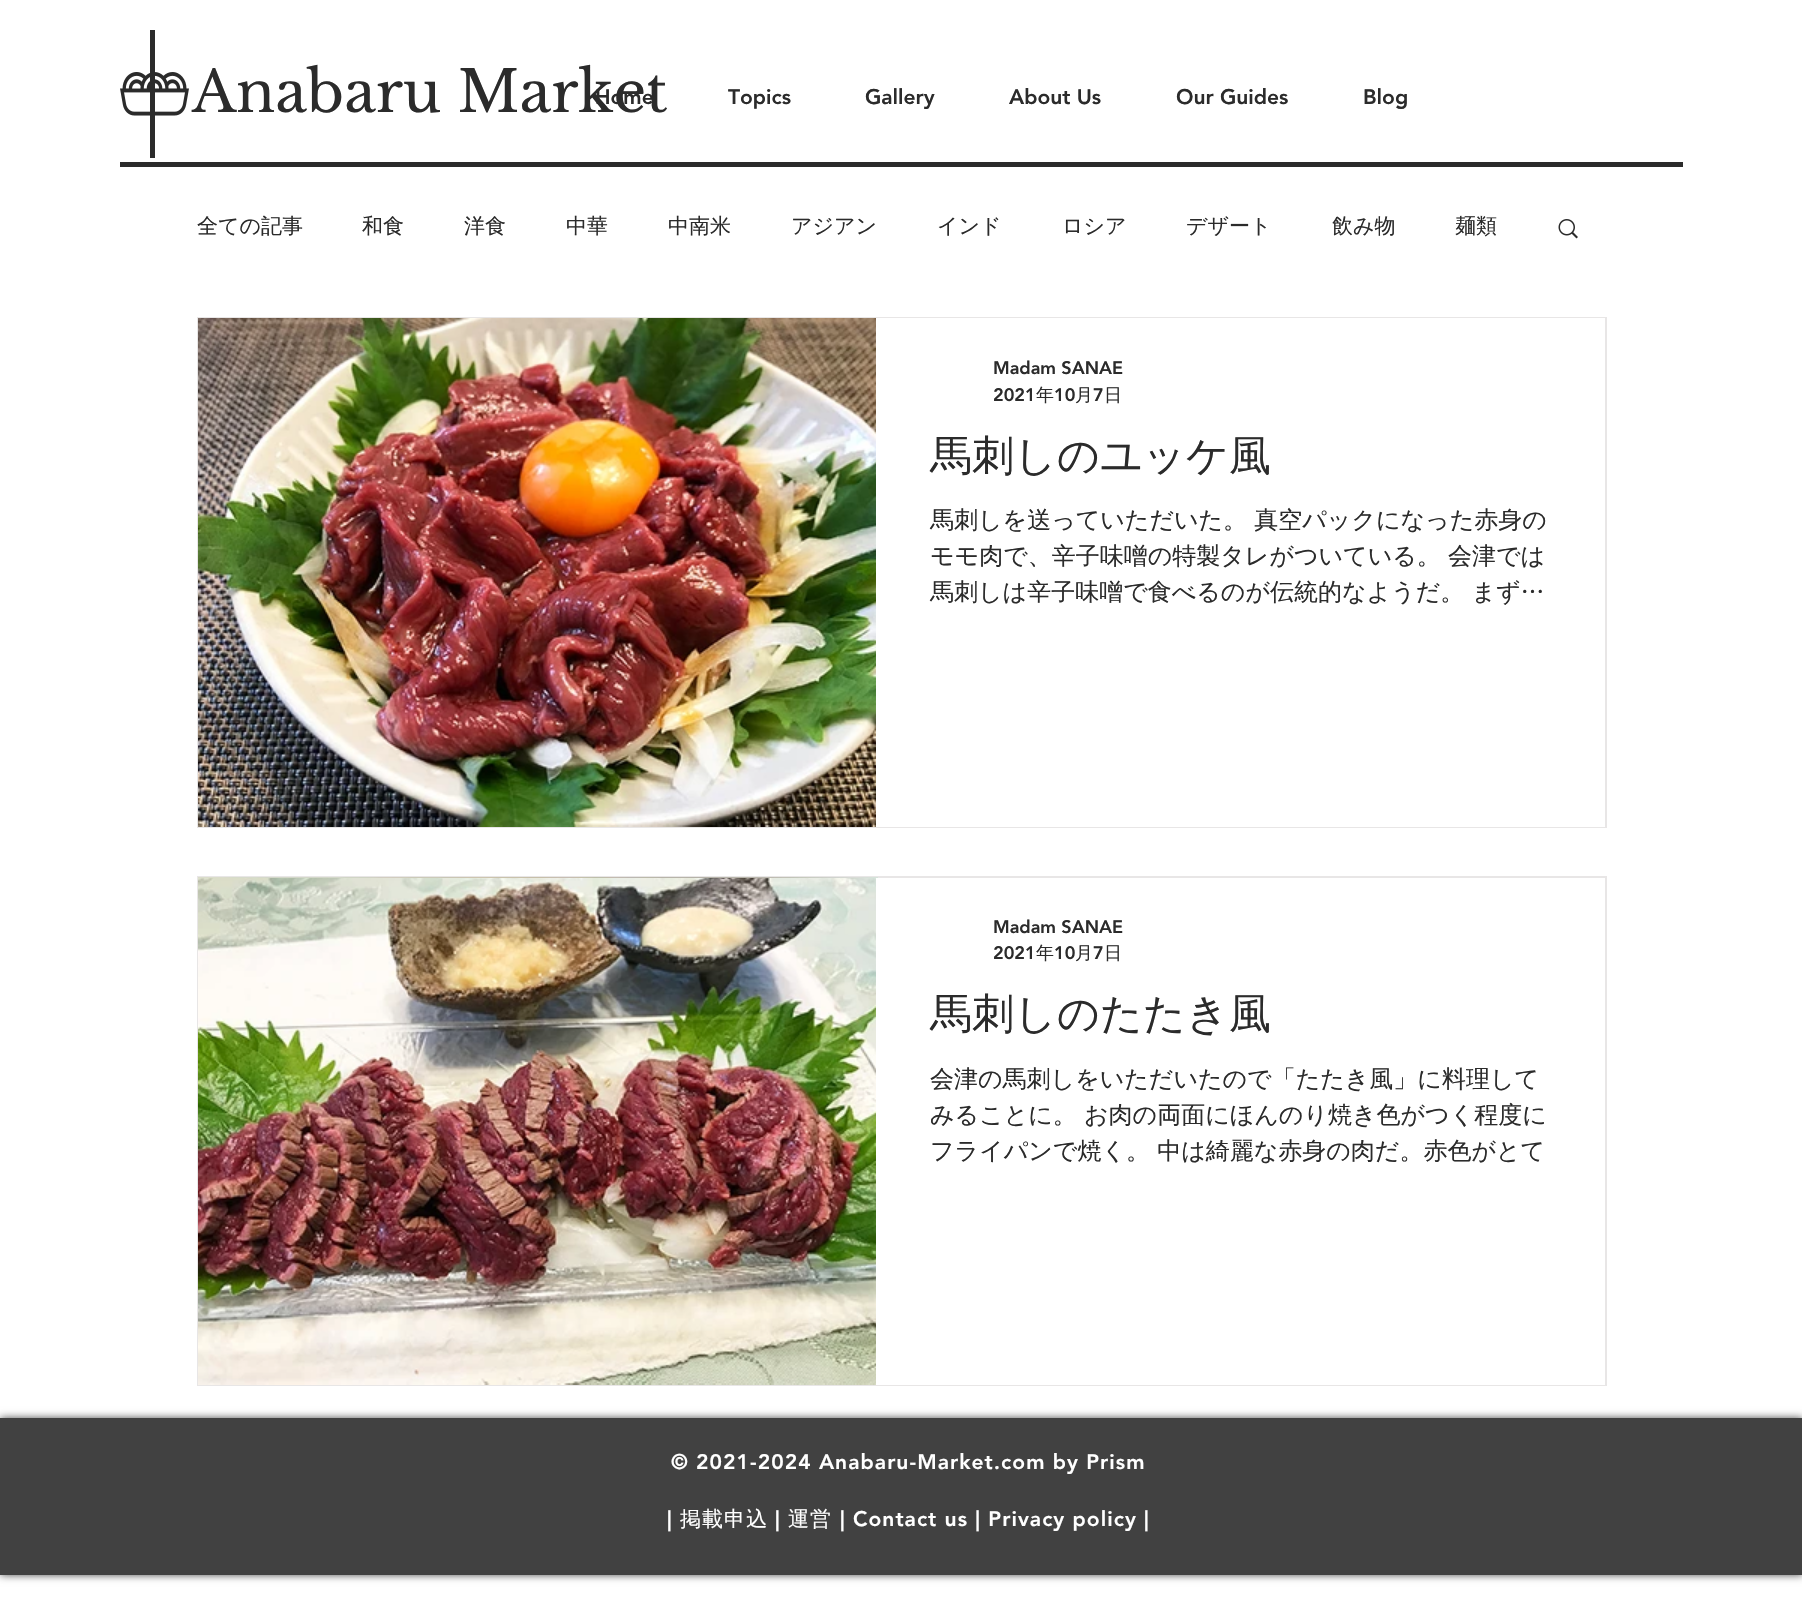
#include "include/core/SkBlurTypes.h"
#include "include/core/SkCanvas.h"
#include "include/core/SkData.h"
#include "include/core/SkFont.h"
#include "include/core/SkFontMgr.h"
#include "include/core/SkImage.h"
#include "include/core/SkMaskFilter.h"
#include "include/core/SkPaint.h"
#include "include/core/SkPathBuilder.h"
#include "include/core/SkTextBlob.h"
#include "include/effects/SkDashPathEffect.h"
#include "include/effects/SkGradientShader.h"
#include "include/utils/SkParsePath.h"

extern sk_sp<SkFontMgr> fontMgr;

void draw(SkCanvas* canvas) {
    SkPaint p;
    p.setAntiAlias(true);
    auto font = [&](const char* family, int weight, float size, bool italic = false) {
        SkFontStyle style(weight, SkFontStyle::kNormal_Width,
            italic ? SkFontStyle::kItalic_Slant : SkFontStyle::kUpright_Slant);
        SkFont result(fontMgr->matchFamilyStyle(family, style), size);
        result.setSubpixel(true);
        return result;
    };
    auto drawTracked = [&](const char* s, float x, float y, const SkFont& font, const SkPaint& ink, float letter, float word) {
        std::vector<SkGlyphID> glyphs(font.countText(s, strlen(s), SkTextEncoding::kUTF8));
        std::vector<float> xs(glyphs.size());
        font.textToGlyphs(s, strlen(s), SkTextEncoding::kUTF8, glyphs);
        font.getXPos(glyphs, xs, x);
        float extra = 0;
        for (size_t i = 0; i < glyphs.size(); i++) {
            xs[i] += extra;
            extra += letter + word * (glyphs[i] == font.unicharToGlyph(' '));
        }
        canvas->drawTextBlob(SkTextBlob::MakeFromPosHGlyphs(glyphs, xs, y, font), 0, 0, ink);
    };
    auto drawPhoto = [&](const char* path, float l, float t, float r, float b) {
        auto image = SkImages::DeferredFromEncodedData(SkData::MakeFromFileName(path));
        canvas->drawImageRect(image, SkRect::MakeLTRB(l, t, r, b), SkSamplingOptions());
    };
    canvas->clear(0xFFFFFFFF);
    p.setColor(0xFF2B2B2B);
    canvas->drawRect(SkRect::MakeLTRB(150, 30, 155, 158), p);
    drawPhoto("media/1.png", 120, 72, 189, 116);
    auto font1 = font("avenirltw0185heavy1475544", 900, 21);
    canvas->drawString("Home", 595, 104, font1, p);
    auto font2 = font("Libre Baskerville", 400, 57);
    canvas->drawString("Anabaru Market", 192, 112, font2, p);
    {
        const struct { const char* s; float x, y; } items[] = {
            {"Topics", 728, 104},
            {"Gallery", 865, 104},
            {"About Us", 1009, 104},
            {"Our Guides", 1176, 104},
            {"Blog", 1363, 104},
        };
        for (auto [s, x, y] : items) {
            canvas->drawString(s, x, y, font1, p);
        }
    }
    canvas->drawRect(SkRect::MakeLTRB(120, 162, 1683, 167), p);
    auto font3 = font("WenQuanYi Zen Hei", 500, 21);
    {
        const struct { const char* s; float x, y; } items[] = {
            {"全ての記事", 197, 233},
            {"和食", 362, 233},
            {"洋食", 464, 233},
            {"中華", 566, 233},
            {"中南米", 668, 233},
            {"アジアン", 791, 233},
            {"インド", 937, 233},
            {"ロシア", 1062, 233},
            {"デザート", 1186, 233},
            {"飲み物", 1332, 233},
            {"麺類", 1455, 233},
        };
        for (auto [s, x, y] : items) {
            canvas->drawString(s, x, y, font3, p);
        }
    }
    drawPhoto("media/2.png", 1558, 219, 1578, 239);
    p.setStyle(SkPaint::kStroke_Style);
    p.setStrokeWidth(2);
    p.setColor(0xFFE8E6E6);
    canvas->drawRect(SkRect::MakeLTRB(198, 318, 1606, 827), p);
    drawPhoto("media/3.png", 198, 318, 876, 827);
    p.setStyle(SkPaint::kFill_Style);
    p.setColor(0xFFFFFFFF);
    canvas->drawRect(SkRect::MakeLTRB(876, 318, 1605, 827), p);
    auto font4 = font("avenirltw0185heavy1475544", 900, 18);
    p.setColor(0xFF2B2B2B);
    canvas->drawString("Madam SANAE", 993, 374, font4, p);
    canvas->drawString("2021", 993, 401, font4, p);
    auto font5 = font("WenQuanYi Zen Hei", 500, 18);
    canvas->drawString("年", 1036, 401, font5, p);
    canvas->drawString("10", 1054, 401, font4, p);
    canvas->drawString("月", 1075, 401, font5, p);
    canvas->drawString("7", 1093, 401, font4, p);
    canvas->drawString("日", 1104, 401, font5, p);
    auto font6 = font("WenQuanYi Zen Hei", 500, 42);
    canvas->drawString("馬刺しのユッケ風", 930, 470, font6, p);
    auto font7 = font("WenQuanYi Zen Hei", 500, 24);
    {
        const struct { const char* s; float x, y; } items[] = {
            {"馬刺しを送っていただいた。 真空パックになった赤身の", 930, 528},
            {"モモ肉で、辛子味噌の特製タレがついている。 会津では", 930, 564},
            {"馬刺しは辛子味噌で食べるのが伝統的なようだ。 まず…", 930, 600},
        };
        for (auto [s, x, y] : items) {
            canvas->drawString(s, x, y, font7, p);
        }
    }
    p.setStyle(SkPaint::kStroke_Style);
    p.setColor(0xFFE8E6E6);
    canvas->drawRect(SkRect::MakeLTRB(198, 877, 1606, 1385), p);
    drawPhoto("media/4.png", 198, 877, 878, 878);
    drawPhoto("media/5.png", 198, 878, 876, 1385);
    p.setStyle(SkPaint::kFill_Style);
    p.setColor(0xFFFFFFFF);
    canvas->drawRect(SkRect::MakeLTRB(876, 1384, 1605, 1385), p);
    p.setColor(0xFF2B2B2B);
    canvas->drawString("Madam SANAE", 993, 933, font4, p);
    canvas->drawString("2021", 993, 959, font4, p);
    canvas->drawString("年", 1036, 959, font5, p);
    canvas->drawString("10", 1054, 959, font4, p);
    canvas->drawString("月", 1075, 959, font5, p);
    canvas->drawString("7", 1093, 959, font4, p);
    canvas->drawString("日", 1104, 959, font5, p);
    canvas->drawString("馬刺しのたたき風", 930, 1028, font6, p);
    {
        const struct { const char* s; float x, y; } items[] = {
            {"会津の馬刺しをいただいたので「たたき風」に料理して", 930, 1087},
            {"みることに。 お肉の両面にほんのり焼き色がつく程度に", 930, 1123},
            {"フライパンで焼く。 中は綺麗な赤身の肉だ。赤色がとて", 930, 1159},
        };
        for (auto [s, x, y] : items) {
            canvas->drawString(s, x, y, font7, p);
        }
    }
    p.setColor(0xB3000000);
    p.setMaskFilter(SkMaskFilter::MakeBlur(kNormal_SkBlurStyle, 4));
    canvas->drawRect(SkRect::MakeLTRB(0, 1418, 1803, 1575), p);
    p.setMaskFilter(nullptr);
    p.setColor(0xFF414141);
    canvas->drawRect(SkRect::MakeLTRB(0, 1418, 1802, 1575), p);
    p.setColor(0xFFFFFFFF);
    drawTracked("© 2021-2024 Anabaru-Market.com by Prism", 671, 1469, font1, p, 1.05f, 0);
    drawTracked("|", 667, 1526, font1, p, 1.05f, 0);
    drawTracked("掲載申込", 680, 1526, font3, p, 1.05f, 0);
    drawTracked("|", 775, 1526, font1, p, 1.05f, 0);
    drawTracked("運営", 788, 1526, font3, p, 1.05f, 0);
    drawTracked("| Contact us | Privacy policy |", 840, 1526, font1, p, 1.05f, 0);
}
